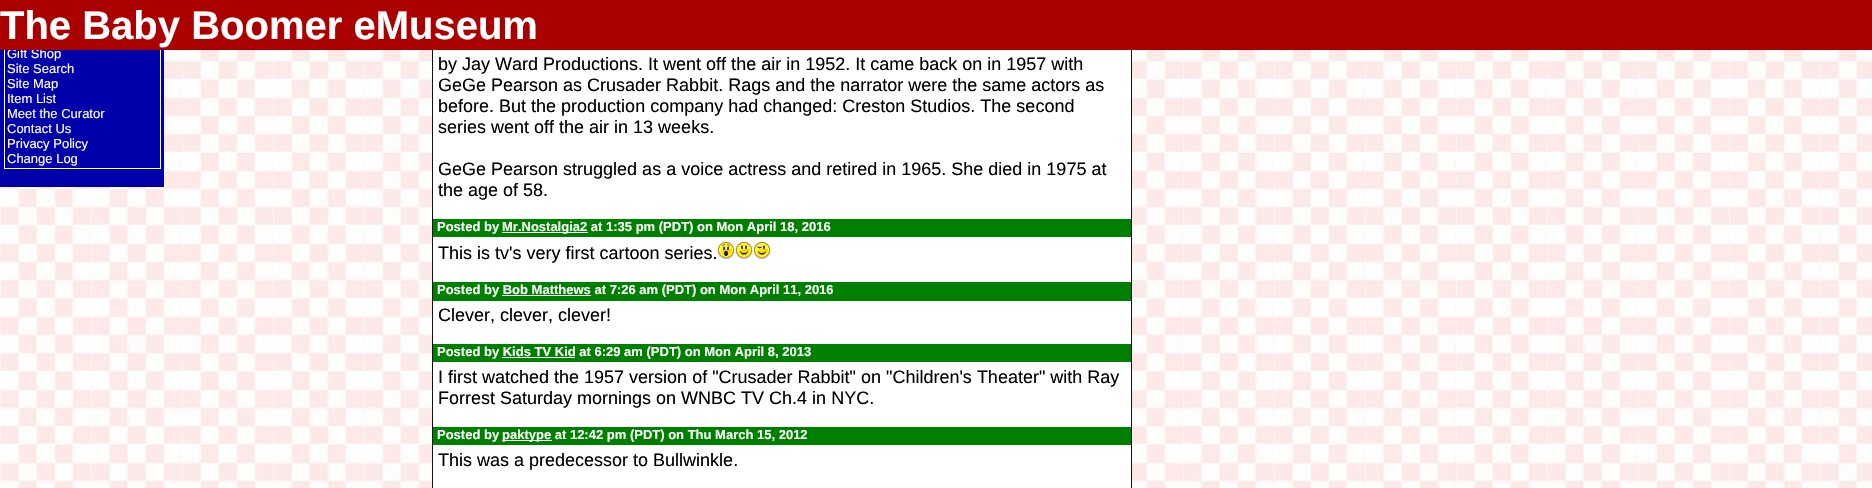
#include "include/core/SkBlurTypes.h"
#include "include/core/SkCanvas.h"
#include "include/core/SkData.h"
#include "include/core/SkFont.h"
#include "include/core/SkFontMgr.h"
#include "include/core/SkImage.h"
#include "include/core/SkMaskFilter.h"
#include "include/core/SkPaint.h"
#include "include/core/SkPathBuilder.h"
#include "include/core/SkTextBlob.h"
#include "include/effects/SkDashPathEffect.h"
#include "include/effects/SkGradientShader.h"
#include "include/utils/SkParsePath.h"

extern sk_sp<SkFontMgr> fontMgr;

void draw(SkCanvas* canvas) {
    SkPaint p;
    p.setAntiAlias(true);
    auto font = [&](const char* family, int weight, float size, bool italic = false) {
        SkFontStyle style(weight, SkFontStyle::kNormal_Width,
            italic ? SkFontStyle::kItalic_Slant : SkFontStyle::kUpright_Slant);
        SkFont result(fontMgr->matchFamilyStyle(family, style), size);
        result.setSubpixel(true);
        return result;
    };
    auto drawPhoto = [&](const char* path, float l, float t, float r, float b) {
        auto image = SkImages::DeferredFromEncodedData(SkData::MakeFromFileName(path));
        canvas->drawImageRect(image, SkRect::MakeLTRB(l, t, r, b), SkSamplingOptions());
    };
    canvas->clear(0xFFFFFFFF);
    drawPhoto("media/1.png", 0, 50, 1872, 488);
    p.setColor(0xFF0000AA);
    canvas->drawRect(SkRect::MakeLTRB(0, 50, 164, 187), p);
    p.setStyle(SkPaint::kStroke_Style);
    p.setStrokeWidth(1);
    p.setColor(0xFFFFFFFF);
    canvas->drawRect(SkRect::MakeLTRB(4.5f, -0.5f, 160.5f, 168.5f), p);
    auto font1 = font("Liberation Sans", 400, 13);
    p.setStyle(SkPaint::kFill_Style);
    canvas->drawString("Gift Shop", 7, 58, font1, p);
    p.setColor(0xFFAA0000);
    canvas->drawRect(SkRect::MakeLTRB(0, 0, 1872, 50), p);
    auto font2 = font("Liberation Sans", 700, 40);
    p.setColor(0xFFFFFFFF);
    canvas->drawString("The Baby Boomer eMuseum", 0, 39, font2, p);
    {
        const struct { const char* s; float x, y; } items[] = {
            {"Site Search", 7, 73},
            {"Site Map", 7, 88},
            {"Item List", 7, 103},
            {"Meet the Curator", 7, 118},
            {"Contact Us", 7, 133},
            {"Privacy Policy", 7, 148},
            {"Change Log", 7, 163},
        };
        for (auto [s, x, y] : items) {
            canvas->drawString(s, x, y, font1, p);
        }
    }
    {
        const struct { float l, t, r, b; SkColor color; } items[] = {
            {433, 50, 1131, 488, 0xFFFFFFFF},
            {1131, 50, 1132, 488, 0xFF111111},
            {432, 50, 433, 488, 0xFF111111},
        };
        for (auto [l, t, r, b, color] : items) {
            p.setColor(color);
            canvas->drawRect(SkRect::MakeLTRB(l, t, r, b), p);
        }
    }
    auto font3 = font("Liberation Sans", 400, 18);
    p.setColor(0xFF000000);
    {
        const struct { const char* s; float x, y; } items[] = {
            {"by Jay Ward Productions. It went off the air in 1952. It came back on in 1957 with", 438, 70},
            {"GeGe Pearson as Crusader Rabbit. Rags and the narrator were the same actors as", 438, 91},
            {"before. But the production company had changed: Creston Studios. The second", 438, 112},
            {"series went off the air in 13 weeks.", 438, 133},
            {"GeGe Pearson struggled as a voice actress and retired in 1965. She died in 1975 at", 438, 175},
            {"the age of 58.", 438, 196},
        };
        for (auto [s, x, y] : items) {
            canvas->drawString(s, x, y, font3, p);
        }
    }
    p.setColor(0xFF008000);
    canvas->drawRect(SkRect::MakeLTRB(433, 219, 1131, 237), p);
    auto font4 = font("Liberation Sans", 700, 13);
    p.setColor(0xFFFFFFFF);
    canvas->drawString("Posted by", 437, 231, font4, p);
    canvas->drawRect(SkRect::MakeLTRB(502, 232, 588, 233), p);
    canvas->drawString("Mr.Nostalgia2 at 1:35 pm (PDT) on Mon April 18, 2016", 502, 231, font4, p);
    p.setColor(0xFF000000);
    canvas->drawString("This is tv's very first cartoon series.", 438, 259, font3, p);
    drawPhoto("media/2.png", 717, 241, 735, 259);
    drawPhoto("media/3.png", 735, 241, 753, 259);
    drawPhoto("media/4.png", 753, 241, 771, 259);
    p.setColor(0xFF008000);
    canvas->drawRect(SkRect::MakeLTRB(433, 282, 1131, 301), p);
    p.setColor(0xFFFFFFFF);
    canvas->drawString("Posted by Bob Matthews at 7:26 am (PDT) on Mon April 11, 2016", 437, 294, font4, p);
    canvas->drawRect(SkRect::MakeLTRB(502, 295, 591, 296), p);
    p.setColor(0xFF000000);
    canvas->drawString("Clever, clever, clever!", 438, 321, font3, p);
    p.setColor(0xFF008000);
    canvas->drawRect(SkRect::MakeLTRB(433, 344, 1131, 362), p);
    p.setColor(0xFFFFFFFF);
    canvas->drawString("Posted by Kids TV Kid at 6:29 am (PDT) on Mon April 8, 2013", 437, 356, font4, p);
    canvas->drawRect(SkRect::MakeLTRB(502, 357, 575, 358), p);
    p.setColor(0xFF000000);
    canvas->drawString("I first watched the 1957 version of \"Crusader Rabbit\" on \"Children's Theater\" with Ray", 438, 383, font3, p);
    canvas->drawString("Forrest Saturday mornings on WNBC TV Ch.4 in NYC.", 438, 404, font3, p);
    p.setColor(0xFF008000);
    canvas->drawRect(SkRect::MakeLTRB(433, 427, 1131, 445), p);
    p.setColor(0xFFFFFFFF);
    canvas->drawString("Posted by", 437, 439, font4, p);
    canvas->drawRect(SkRect::MakeLTRB(502, 440, 552, 441), p);
    canvas->drawString("paktype at 12:42 pm (PDT) on Thu March 15, 2012", 502, 439, font4, p);
    p.setColor(0xFF000000);
    canvas->drawString("This was a predecessor to Bullwinkle.", 438, 466, font3, p);
}
